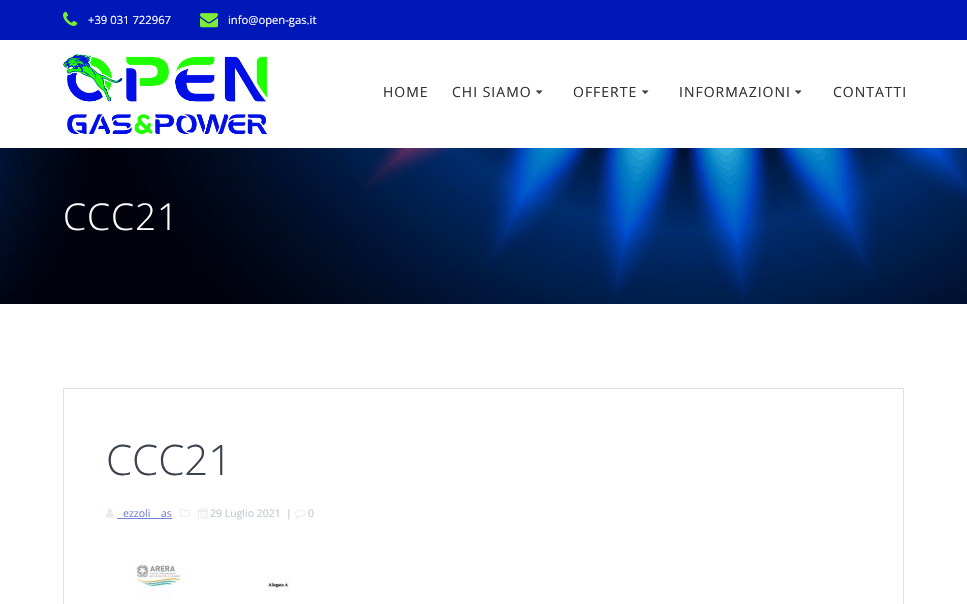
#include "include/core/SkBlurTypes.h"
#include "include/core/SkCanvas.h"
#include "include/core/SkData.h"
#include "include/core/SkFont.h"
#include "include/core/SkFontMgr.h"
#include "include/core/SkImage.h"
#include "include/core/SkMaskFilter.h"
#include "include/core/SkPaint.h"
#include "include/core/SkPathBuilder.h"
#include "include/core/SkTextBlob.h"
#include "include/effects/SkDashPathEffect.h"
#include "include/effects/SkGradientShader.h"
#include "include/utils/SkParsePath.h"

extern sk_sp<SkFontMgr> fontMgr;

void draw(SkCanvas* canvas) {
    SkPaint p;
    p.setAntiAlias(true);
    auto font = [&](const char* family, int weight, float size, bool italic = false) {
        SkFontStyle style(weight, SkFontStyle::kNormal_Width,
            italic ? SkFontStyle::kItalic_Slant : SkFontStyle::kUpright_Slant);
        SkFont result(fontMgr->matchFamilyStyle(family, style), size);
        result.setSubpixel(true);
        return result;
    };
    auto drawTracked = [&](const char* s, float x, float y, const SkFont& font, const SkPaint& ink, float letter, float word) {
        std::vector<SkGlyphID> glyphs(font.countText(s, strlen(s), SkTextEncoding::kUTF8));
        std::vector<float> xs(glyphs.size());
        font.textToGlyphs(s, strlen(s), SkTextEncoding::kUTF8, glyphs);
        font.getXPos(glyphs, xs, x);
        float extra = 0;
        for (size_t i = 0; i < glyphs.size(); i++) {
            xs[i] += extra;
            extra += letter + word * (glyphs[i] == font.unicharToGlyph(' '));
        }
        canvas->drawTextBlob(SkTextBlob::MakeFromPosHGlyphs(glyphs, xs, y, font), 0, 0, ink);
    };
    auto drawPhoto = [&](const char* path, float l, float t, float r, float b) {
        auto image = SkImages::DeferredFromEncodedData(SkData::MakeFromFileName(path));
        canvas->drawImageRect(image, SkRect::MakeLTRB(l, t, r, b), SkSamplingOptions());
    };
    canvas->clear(0xFFFFFFFF);
    p.setColor(0xFF0018B7);
    canvas->drawRect(SkRect::MakeLTRB(0, 0, 967, 40), p);
    drawPhoto("media/1.png", 63, 11, 78, 26);
    auto font1 = font("Open Sans", 400, 11.25f);
    p.setColor(0xFFFFFFFF);
    canvas->drawString("+39 031 722967", 88, 24, font1, p);
    drawPhoto("media/2.png", 200, 13, 218, 28);
    canvas->drawString("info@open-gas.it", 228, 24, font1, p);
    drawPhoto("media/3.png", 63, 54, 267, 134);
    auto font2 = font("Open Sans", 400, 14);
    p.setColor(0xFF333333);
    drawTracked("HOME", 383, 97, font2, p, 1, 0);
    drawTracked("CHI SIAMO", 452, 97, font2, p, 1, 0);
    drawPhoto("media/4.png", 536, 90, 543, 94);
    drawTracked("OFFERTE", 573, 97, font2, p, 1, 0);
    drawPhoto("media/4.png", 642, 90, 649, 94);
    drawTracked("INFORMAZIONI", 679, 97, font2, p, 1, 0);
    drawPhoto("media/4.png", 795, 90, 802, 94);
    drawTracked("CONTATTI", 833, 97, font2, p, 1, 0);
    drawPhoto("media/5.png", 0, 148, 967, 304);
    auto font3 = font("Open Sans", 300, 37);
    p.setColor(0xFFFFFFFF);
    drawTracked("CCC21", 63, 230, font3, p, 1, 0);
    p.setStyle(SkPaint::kStroke_Style);
    p.setStrokeWidth(1);
    p.setColor(0xFFE0E1E1);
    canvas->drawRect(SkRect::MakeLTRB(63.5f, 388.5f, 903.5f, 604.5f), p);
    auto font4 = font("Open Sans", 300, 42);
    p.setStyle(SkPaint::kFill_Style);
    p.setColor(0xFF3C424F);
    canvas->drawString("CCC21", 106, 475, font4, p);
    drawPhoto("media/6.png", 106, 508, 114, 518);
    auto font5 = font("Open Sans", 400, 10.5f);
    p.setColor(0xFF7380D7);
    canvas->drawString("ezzoli", 123, 517, font5, p);
    canvas->drawString("as", 161, 517, font5, p);
    canvas->drawRect(SkRect::MakeLTRB(117, 518, 172, 519), p);
    drawPhoto("media/7.png", 180, 508, 190, 517);
    drawPhoto("media/8.png", 198, 508, 208, 519);
    p.setColor(0xFFC1C9D2);
    canvas->drawString("29 Luglio 2021", 210, 517, font5, p);
    canvas->drawString("|", 286, 517, font5, p);
    drawPhoto("media/9.png", 295, 509, 306, 519);
    canvas->drawString("0", 308, 517, font5, p);
    drawPhoto("media/10.png", 132, 560, 290, 600);
}
